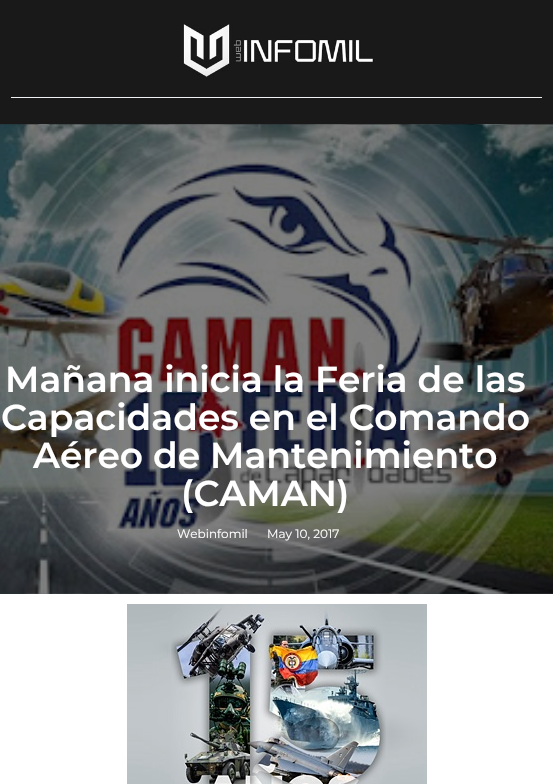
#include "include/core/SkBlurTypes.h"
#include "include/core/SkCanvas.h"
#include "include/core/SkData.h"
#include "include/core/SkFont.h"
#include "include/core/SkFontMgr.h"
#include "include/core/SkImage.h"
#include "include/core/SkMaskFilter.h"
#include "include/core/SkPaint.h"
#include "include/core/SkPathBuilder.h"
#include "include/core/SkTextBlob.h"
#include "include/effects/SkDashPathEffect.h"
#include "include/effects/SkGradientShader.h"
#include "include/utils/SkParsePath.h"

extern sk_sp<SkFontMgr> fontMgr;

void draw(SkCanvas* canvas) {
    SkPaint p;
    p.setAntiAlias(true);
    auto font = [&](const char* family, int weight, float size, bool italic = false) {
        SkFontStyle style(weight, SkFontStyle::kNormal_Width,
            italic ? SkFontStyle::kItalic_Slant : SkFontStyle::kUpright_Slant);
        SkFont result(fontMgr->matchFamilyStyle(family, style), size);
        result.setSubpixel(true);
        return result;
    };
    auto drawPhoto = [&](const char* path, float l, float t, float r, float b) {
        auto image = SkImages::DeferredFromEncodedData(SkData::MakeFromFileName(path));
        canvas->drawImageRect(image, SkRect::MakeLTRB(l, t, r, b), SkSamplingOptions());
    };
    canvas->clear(0xFFFFFFFF);
    p.setColor(0xFF191919);
    canvas->drawRect(SkRect::MakeLTRB(0, 0, 553, 124), p);
    p.setColor(0xFFF0F1F2);
    canvas->drawRect(SkRect::MakeLTRB(11, 97, 542, 98), p);
    drawPhoto("media/1.png", 183, 24, 374, 77);
    drawPhoto("media/2.png", 0, 124, 553, 594);
    auto font1 = font("Montserrat", 600, 36);
    p.setColor(0xFFFFFFFF);
    {
        const struct { const char* s; float x, y; } items[] = {
            {"Mañana inicia la Feria de las", 5, 392},
            {"Capacidades en el Comando", 1, 430},
            {"Aéreo de Mantenimiento", 33, 468},
            {"(CAMAN)", 181, 506},
        };
        for (auto [s, x, y] : items) {
            canvas->drawString(s, x, y, font1, p);
        }
    }
    auto font2 = font("Montserrat", 400, 12);
    canvas->drawString("Webinfomil", 177, 538, font2, p);
    canvas->drawString("May 10, 2017", 267, 538, font2, p);
    drawPhoto("media/3.png", 127, 604, 427, 784);
}
